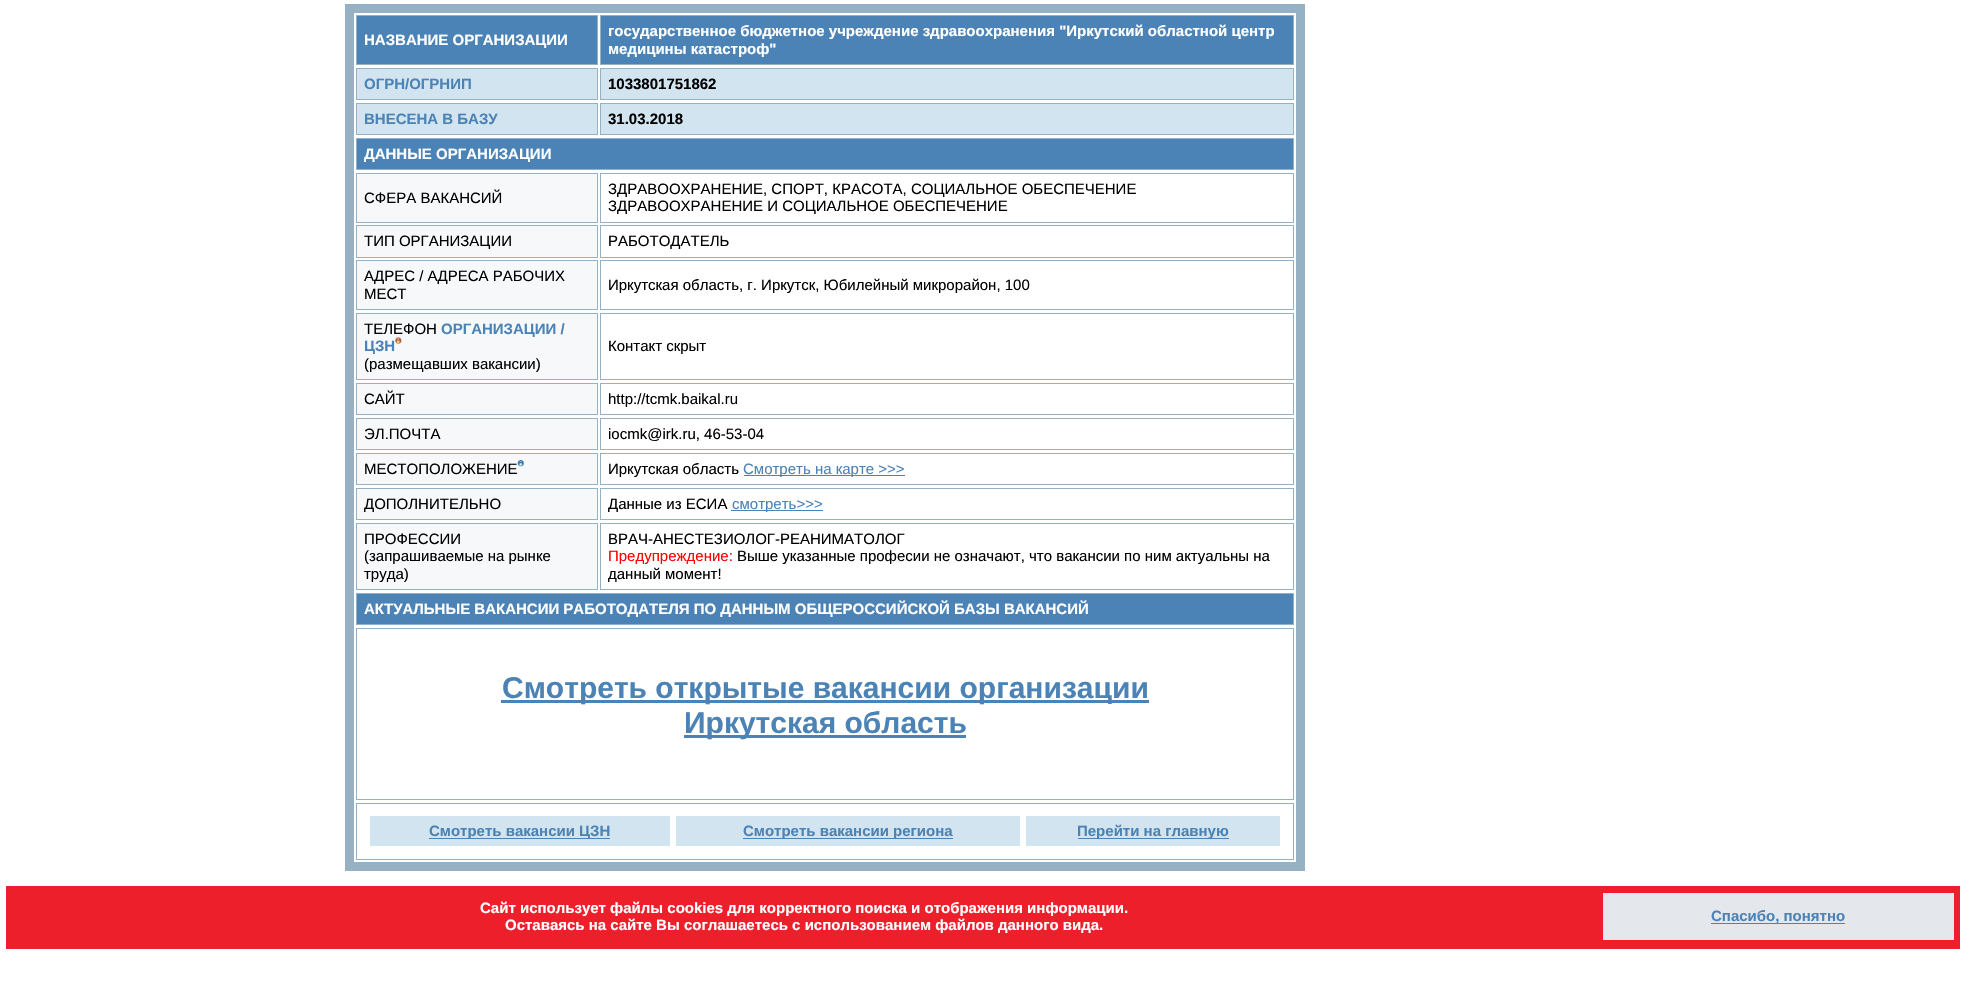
#include "include/core/SkBlurTypes.h"
#include "include/core/SkCanvas.h"
#include "include/core/SkData.h"
#include "include/core/SkFont.h"
#include "include/core/SkFontMgr.h"
#include "include/core/SkImage.h"
#include "include/core/SkMaskFilter.h"
#include "include/core/SkPaint.h"
#include "include/core/SkPathBuilder.h"
#include "include/core/SkTextBlob.h"
#include "include/effects/SkDashPathEffect.h"
#include "include/effects/SkGradientShader.h"
#include "include/utils/SkParsePath.h"

extern sk_sp<SkFontMgr> fontMgr;

void draw(SkCanvas* canvas) {
    SkPaint p;
    p.setAntiAlias(true);
    auto font = [&](const char* family, int weight, float size, bool italic = false) {
        SkFontStyle style(weight, SkFontStyle::kNormal_Width,
            italic ? SkFontStyle::kItalic_Slant : SkFontStyle::kUpright_Slant);
        SkFont result(fontMgr->matchFamilyStyle(family, style), size);
        result.setSubpixel(true);
        return result;
    };
    auto drawPhoto = [&](const char* path, float l, float t, float r, float b) {
        auto image = SkImages::DeferredFromEncodedData(SkData::MakeFromFileName(path));
        canvas->drawImageRect(image, SkRect::MakeLTRB(l, t, r, b), SkSamplingOptions());
    };
    canvas->clear(0xFFFFFFFF);
    p.setStyle(SkPaint::kStroke_Style);
    p.setStrokeWidth(9);
    p.setColor(0xFF96B1C4);
    canvas->drawRect(SkRect::MakeLTRB(349.5f, 8.5f, 1300.5f, 866.5f), p);
    p.setStyle(SkPaint::kFill_Style);
    p.setColor(0xFF4B83B6);
    canvas->drawRect(SkRect::MakeLTRB(356.5f, 15.5f, 597.5f, 64.5f), p);
    p.setStyle(SkPaint::kStroke_Style);
    p.setStrokeWidth(1);
    p.setColor(0xFF96B1C4);
    canvas->drawRect(SkRect::MakeLTRB(356.5f, 15.5f, 597.5f, 64.5f), p);
    auto font1 = font("Liberation Sans", 700, 15);
    p.setStyle(SkPaint::kFill_Style);
    p.setColor(0xFFFFFFFF);
    canvas->drawString("НАЗВАНИЕ ОРГАНИЗАЦИИ", 364, 45, font1, p);
    p.setColor(0xFF4B83B6);
    canvas->drawRect(SkRect::MakeLTRB(600.5f, 15.5f, 1293.5f, 64.5f), p);
    p.setStyle(SkPaint::kStroke_Style);
    p.setColor(0xFF96B1C4);
    canvas->drawRect(SkRect::MakeLTRB(600.5f, 15.5f, 1293.5f, 64.5f), p);
    p.setStyle(SkPaint::kFill_Style);
    p.setColor(0xFFFFFFFF);
    canvas->drawString("государственное бюджетное учреждение здравоохранения \"Иркутский областной центр", 608, 36, font1, p);
    canvas->drawString("медицины катастроф\"", 608, 54, font1, p);
    p.setColor(0xFFD1E4EF);
    canvas->drawRect(SkRect::MakeLTRB(356.5f, 68.5f, 597.5f, 99.5f), p);
    p.setStyle(SkPaint::kStroke_Style);
    p.setColor(0xFF96B1C4);
    canvas->drawRect(SkRect::MakeLTRB(356.5f, 68.5f, 597.5f, 99.5f), p);
    p.setStyle(SkPaint::kFill_Style);
    p.setColor(0xFF4B83B6);
    canvas->drawString("ОГРН/ОГРНИП", 364, 89, font1, p);
    p.setColor(0xFFD1E4EF);
    canvas->drawRect(SkRect::MakeLTRB(600.5f, 68.5f, 1293.5f, 99.5f), p);
    p.setStyle(SkPaint::kStroke_Style);
    p.setColor(0xFF96B1C4);
    canvas->drawRect(SkRect::MakeLTRB(600.5f, 68.5f, 1293.5f, 99.5f), p);
    p.setStyle(SkPaint::kFill_Style);
    p.setColor(0xFF000000);
    canvas->drawString("1033801751862", 608, 89, font1, p);
    p.setColor(0xFFD1E4EF);
    canvas->drawRect(SkRect::MakeLTRB(356.5f, 103.5f, 597.5f, 134.5f), p);
    p.setStyle(SkPaint::kStroke_Style);
    p.setColor(0xFF96B1C4);
    canvas->drawRect(SkRect::MakeLTRB(356.5f, 103.5f, 597.5f, 134.5f), p);
    p.setStyle(SkPaint::kFill_Style);
    p.setColor(0xFF4B83B6);
    canvas->drawString("ВНЕСЕНА В БАЗУ", 364, 124, font1, p);
    p.setColor(0xFFD1E4EF);
    canvas->drawRect(SkRect::MakeLTRB(600.5f, 103.5f, 1293.5f, 134.5f), p);
    p.setStyle(SkPaint::kStroke_Style);
    p.setColor(0xFF96B1C4);
    canvas->drawRect(SkRect::MakeLTRB(600.5f, 103.5f, 1293.5f, 134.5f), p);
    p.setStyle(SkPaint::kFill_Style);
    p.setColor(0xFF000000);
    canvas->drawString("31.03.2018", 608, 124, font1, p);
    p.setColor(0xFF4B83B6);
    canvas->drawRect(SkRect::MakeLTRB(356.5f, 138.5f, 1293.5f, 169.5f), p);
    p.setStyle(SkPaint::kStroke_Style);
    p.setColor(0xFF96B1C4);
    canvas->drawRect(SkRect::MakeLTRB(356.5f, 138.5f, 1293.5f, 169.5f), p);
    p.setStyle(SkPaint::kFill_Style);
    p.setColor(0xFFFFFFFF);
    canvas->drawString("ДАННЫЕ ОРГАНИЗАЦИИ", 364, 159, font1, p);
    p.setColor(0xFFF7F8F9);
    canvas->drawRect(SkRect::MakeLTRB(356.5f, 173.5f, 597.5f, 222.5f), p);
    p.setStyle(SkPaint::kStroke_Style);
    p.setColor(0xFF96B1C4);
    canvas->drawRect(SkRect::MakeLTRB(356.5f, 173.5f, 597.5f, 222.5f), p);
    auto font2 = font("Liberation Sans", 400, 15);
    p.setStyle(SkPaint::kFill_Style);
    p.setColor(0xFF000000);
    canvas->drawString("СФЕРА ВАКАНСИЙ", 364, 203, font2, p);
    p.setStyle(SkPaint::kStroke_Style);
    p.setColor(0xFF96B1C4);
    canvas->drawRect(SkRect::MakeLTRB(600.5f, 173.5f, 1293.5f, 222.5f), p);
    p.setStyle(SkPaint::kFill_Style);
    p.setColor(0xFF000000);
    canvas->drawString("ЗДРАВООХРАНЕНИЕ, СПОРТ, КРАСОТА, СОЦИАЛЬНОЕ ОБЕСПЕЧЕНИЕ", 608, 194, font2, p);
    canvas->drawString("ЗДРАВООХРАНЕНИЕ И СОЦИАЛЬНОЕ ОБЕСПЕЧЕНИЕ", 608, 211, font2, p);
    p.setColor(0xFFF7F8F9);
    canvas->drawRect(SkRect::MakeLTRB(356.5f, 225.5f, 597.5f, 257.5f), p);
    p.setStyle(SkPaint::kStroke_Style);
    p.setColor(0xFF96B1C4);
    canvas->drawRect(SkRect::MakeLTRB(356.5f, 225.5f, 597.5f, 257.5f), p);
    p.setStyle(SkPaint::kFill_Style);
    p.setColor(0xFF000000);
    canvas->drawString("ТИП ОРГАНИЗАЦИИ", 364, 246, font2, p);
    p.setStyle(SkPaint::kStroke_Style);
    p.setColor(0xFF96B1C4);
    canvas->drawRect(SkRect::MakeLTRB(600.5f, 225.5f, 1293.5f, 257.5f), p);
    p.setStyle(SkPaint::kFill_Style);
    p.setColor(0xFF000000);
    canvas->drawString("РАБОТОДАТЕЛЬ", 608, 246, font2, p);
    p.setColor(0xFFF7F8F9);
    canvas->drawRect(SkRect::MakeLTRB(356.5f, 260.5f, 597.5f, 309.5f), p);
    p.setStyle(SkPaint::kStroke_Style);
    p.setColor(0xFF96B1C4);
    canvas->drawRect(SkRect::MakeLTRB(356.5f, 260.5f, 597.5f, 309.5f), p);
    p.setStyle(SkPaint::kFill_Style);
    p.setColor(0xFF000000);
    canvas->drawString("АДРЕС / АДРЕСА РАБОЧИХ", 364, 281, font2, p);
    canvas->drawString("МЕСТ", 364, 299, font2, p);
    p.setStyle(SkPaint::kStroke_Style);
    p.setColor(0xFF96B1C4);
    canvas->drawRect(SkRect::MakeLTRB(600.5f, 260.5f, 1293.5f, 309.5f), p);
    p.setStyle(SkPaint::kFill_Style);
    p.setColor(0xFF000000);
    canvas->drawString("Иркутская область, г. Иркутск, Юбилейный микрорайон, 100", 608, 290, font2, p);
    p.setColor(0xFFF7F8F9);
    canvas->drawRect(SkRect::MakeLTRB(356.5f, 313.5f, 597.5f, 379.5f), p);
    p.setStyle(SkPaint::kStroke_Style);
    p.setColor(0xFF96B1C4);
    canvas->drawRect(SkRect::MakeLTRB(356.5f, 313.5f, 597.5f, 379.5f), p);
    p.setStyle(SkPaint::kFill_Style);
    p.setColor(0xFF000000);
    canvas->drawString("ТЕЛЕФОН", 364, 334, font2, p);
    p.setColor(0xFF4B83B6);
    canvas->drawString("ОРГАНИЗАЦИИ /", 441, 334, font1, p);
    canvas->drawString("ЦЗН", 364, 351, font1, p);
    drawPhoto("media/1.png", 395, 337, 402, 344);
    p.setColor(0xFF000000);
    canvas->drawString("(размещавших вакансии)", 364, 369, font2, p);
    p.setStyle(SkPaint::kStroke_Style);
    p.setColor(0xFF96B1C4);
    canvas->drawRect(SkRect::MakeLTRB(600.5f, 313.5f, 1293.5f, 379.5f), p);
    p.setStyle(SkPaint::kFill_Style);
    p.setColor(0xFF000000);
    canvas->drawString("Контакт скрыт", 608, 351, font2, p);
    p.setColor(0xFFF7F8F9);
    canvas->drawRect(SkRect::MakeLTRB(356.5f, 383.5f, 597.5f, 414.5f), p);
    p.setStyle(SkPaint::kStroke_Style);
    p.setColor(0xFF96B1C4);
    canvas->drawRect(SkRect::MakeLTRB(356.5f, 383.5f, 597.5f, 414.5f), p);
    p.setStyle(SkPaint::kFill_Style);
    p.setColor(0xFF000000);
    canvas->drawString("САЙТ", 364, 404, font2, p);
    p.setStyle(SkPaint::kStroke_Style);
    p.setColor(0xFF96B1C4);
    canvas->drawRect(SkRect::MakeLTRB(600.5f, 383.5f, 1293.5f, 414.5f), p);
    p.setStyle(SkPaint::kFill_Style);
    p.setColor(0xFF000000);
    canvas->drawString("http://tcmk.baikal.ru", 608, 404, font2, p);
    p.setColor(0xFFF7F8F9);
    canvas->drawRect(SkRect::MakeLTRB(356.5f, 418.5f, 597.5f, 449.5f), p);
    p.setStyle(SkPaint::kStroke_Style);
    p.setColor(0xFF96B1C4);
    canvas->drawRect(SkRect::MakeLTRB(356.5f, 418.5f, 597.5f, 449.5f), p);
    p.setStyle(SkPaint::kFill_Style);
    p.setColor(0xFF000000);
    canvas->drawString("ЭЛ.ПОЧТА", 364, 439, font2, p);
    p.setStyle(SkPaint::kStroke_Style);
    p.setColor(0xFF96B1C4);
    canvas->drawRect(SkRect::MakeLTRB(600.5f, 418.5f, 1293.5f, 449.5f), p);
    p.setStyle(SkPaint::kFill_Style);
    p.setColor(0xFF000000);
    canvas->drawString("iocmk@irk.ru, 46-53-04", 608, 439, font2, p);
    p.setColor(0xFFF7F8F9);
    canvas->drawRect(SkRect::MakeLTRB(356.5f, 453.5f, 597.5f, 484.5f), p);
    p.setStyle(SkPaint::kStroke_Style);
    p.setColor(0xFF96B1C4);
    canvas->drawRect(SkRect::MakeLTRB(356.5f, 453.5f, 597.5f, 484.5f), p);
    p.setStyle(SkPaint::kFill_Style);
    p.setColor(0xFF000000);
    canvas->drawString("МЕСТОПОЛОЖЕНИЕ", 364, 474, font2, p);
    drawPhoto("media/2.png", 517, 460, 524, 467);
    p.setStyle(SkPaint::kStroke_Style);
    p.setColor(0xFF96B1C4);
    canvas->drawRect(SkRect::MakeLTRB(600.5f, 453.5f, 1293.5f, 484.5f), p);
    p.setStyle(SkPaint::kFill_Style);
    p.setColor(0xFF000000);
    canvas->drawString("Иркутская область", 608, 474, font2, p);
    p.setColor(0xFF4B83B6);
    canvas->drawRect(SkRect::MakeLTRB(744, 475, 905, 476), p);
    canvas->drawString("Смотреть на карте >>>", 743, 474, font2, p);
    p.setColor(0xFFF7F8F9);
    canvas->drawRect(SkRect::MakeLTRB(356.5f, 488.5f, 597.5f, 519.5f), p);
    p.setStyle(SkPaint::kStroke_Style);
    p.setColor(0xFF96B1C4);
    canvas->drawRect(SkRect::MakeLTRB(356.5f, 488.5f, 597.5f, 519.5f), p);
    p.setStyle(SkPaint::kFill_Style);
    p.setColor(0xFF000000);
    canvas->drawString("ДОПОЛНИТЕЛЬНО", 364, 509, font2, p);
    p.setStyle(SkPaint::kStroke_Style);
    p.setColor(0xFF96B1C4);
    canvas->drawRect(SkRect::MakeLTRB(600.5f, 488.5f, 1293.5f, 519.5f), p);
    p.setStyle(SkPaint::kFill_Style);
    p.setColor(0xFF000000);
    canvas->drawString("Данные из ЕСИА", 608, 509, font2, p);
    p.setColor(0xFF4B83B6);
    canvas->drawRect(SkRect::MakeLTRB(731, 510, 823, 511), p);
    canvas->drawString("смотреть>>>", 732, 509, font2, p);
    p.setColor(0xFFF7F8F9);
    canvas->drawRect(SkRect::MakeLTRB(356.5f, 523.5f, 597.5f, 589.5f), p);
    p.setStyle(SkPaint::kStroke_Style);
    p.setColor(0xFF96B1C4);
    canvas->drawRect(SkRect::MakeLTRB(356.5f, 523.5f, 597.5f, 589.5f), p);
    p.setStyle(SkPaint::kFill_Style);
    p.setColor(0xFF000000);
    {
        const struct { const char* s; float x, y; } items[] = {
            {"ПРОФЕССИИ", 364, 544},
            {"(запрашиваемые на рынке", 364, 561},
            {"труда)", 364, 579},
        };
        for (auto [s, x, y] : items) {
            canvas->drawString(s, x, y, font2, p);
        }
    }
    p.setStyle(SkPaint::kStroke_Style);
    p.setColor(0xFF96B1C4);
    canvas->drawRect(SkRect::MakeLTRB(600.5f, 523.5f, 1293.5f, 589.5f), p);
    p.setStyle(SkPaint::kFill_Style);
    p.setColor(0xFF000000);
    canvas->drawString("ВРАЧ-АНЕСТЕЗИОЛОГ-РЕАНИМАТОЛОГ", 608, 544, font2, p);
    p.setColor(0xFFFF0000);
    canvas->drawString("Предупреждение:", 608, 561, font2, p);
    p.setColor(0xFF000000);
    canvas->drawString("Выше указанные професии не означают, что вакансии по ним актуальны на", 737, 561, font2, p);
    canvas->drawString("данный момент!", 608, 579, font2, p);
    p.setColor(0xFF4B83B6);
    canvas->drawRect(SkRect::MakeLTRB(356.5f, 593.5f, 1293.5f, 624.5f), p);
    p.setStyle(SkPaint::kStroke_Style);
    p.setColor(0xFF96B1C4);
    canvas->drawRect(SkRect::MakeLTRB(356.5f, 593.5f, 1293.5f, 624.5f), p);
    p.setStyle(SkPaint::kFill_Style);
    p.setColor(0xFFFFFFFF);
    canvas->drawString("АКТУАЛЬНЫЕ ВАКАНСИИ РАБОТОДАТЕЛЯ ПО ДАННЫМ ОБЩЕРОССИЙСКОЙ БАЗЫ ВАКАНСИЙ", 364, 614, font1, p);
    p.setStyle(SkPaint::kStroke_Style);
    p.setColor(0xFF96B1C4);
    canvas->drawRect(SkRect::MakeLTRB(356.5f, 628.5f, 1293.5f, 799.5f), p);
    p.setStyle(SkPaint::kFill_Style);
    p.setColor(0xFF4B83B6);
    canvas->drawRect(SkRect::MakeLTRB(501, 700, 1149, 703), p);
    auto font3 = font("Liberation Sans", 700, 30);
    canvas->drawString("Смотреть открытые вакансии организации", 502, 698, font3, p);
    canvas->drawRect(SkRect::MakeLTRB(684, 735, 966, 738), p);
    canvas->drawString("Иркутская область", 684, 733, font3, p);
    p.setStyle(SkPaint::kStroke_Style);
    p.setColor(0xFF96B1C4);
    canvas->drawRect(SkRect::MakeLTRB(356.5f, 803.5f, 1293.5f, 859.5f), p);
    p.setStyle(SkPaint::kFill_Style);
    p.setColor(0xFFD1E4EF);
    canvas->drawRect(SkRect::MakeLTRB(370, 816, 670, 846), p);
    p.setColor(0xFF4B83B6);
    canvas->drawRect(SkRect::MakeLTRB(429, 838, 610, 839), p);
    canvas->drawString("Смотреть вакансии ЦЗН", 429, 836, font1, p);
    p.setColor(0xFFD1E4EF);
    canvas->drawRect(SkRect::MakeLTRB(676, 816, 1020, 846), p);
    p.setColor(0xFF4B83B6);
    canvas->drawRect(SkRect::MakeLTRB(743, 838, 953, 839), p);
    canvas->drawString("Смотреть вакансии региона", 743, 836, font1, p);
    p.setColor(0xFFD1E4EF);
    canvas->drawRect(SkRect::MakeLTRB(1026, 816, 1280, 846), p);
    p.setColor(0xFF4B83B6);
    canvas->drawRect(SkRect::MakeLTRB(1078, 838, 1229, 839), p);
    canvas->drawString("Перейти на главную", 1077, 836, font1, p);
    p.setColor(0xFFED1F2B);
    canvas->drawRect(SkRect::MakeLTRB(6, 886, 1960, 949), p);
    p.setColor(0xFFFFFFFF);
    canvas->drawString("Сайт использует файлы cookies для корректного поиска и отображения информации.", 480, 913, font1, p);
    canvas->drawString("Оставаясь на сайте Вы соглашаетесь с использованием файлов данного вида.", 505, 930, font1, p);
    p.setColor(0xFFE4E7EC);
    canvas->drawRect(SkRect::MakeLTRB(1603, 893, 1954, 940), p);
    p.setColor(0xFF4B83B6);
    canvas->drawRect(SkRect::MakeLTRB(1711, 923, 1845, 924), p);
    canvas->drawString("Спасибо, понятно", 1711, 921, font1, p);
}
